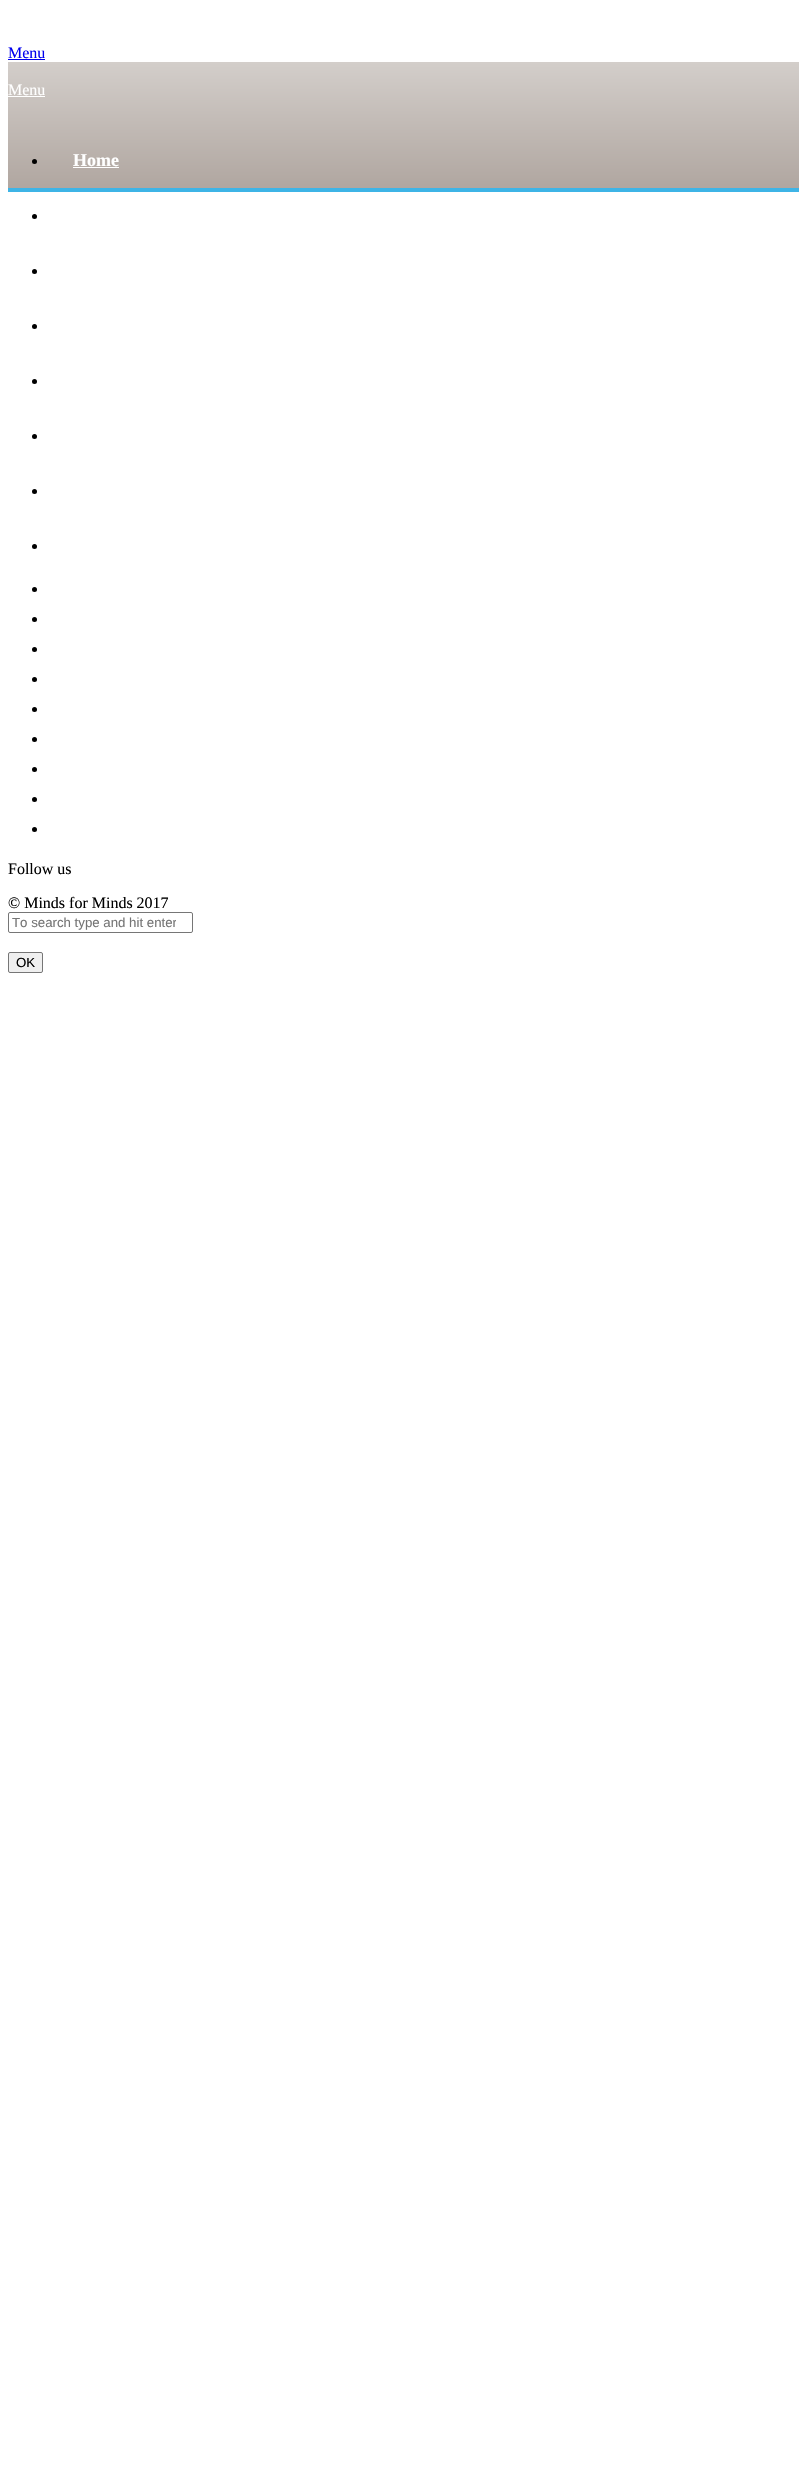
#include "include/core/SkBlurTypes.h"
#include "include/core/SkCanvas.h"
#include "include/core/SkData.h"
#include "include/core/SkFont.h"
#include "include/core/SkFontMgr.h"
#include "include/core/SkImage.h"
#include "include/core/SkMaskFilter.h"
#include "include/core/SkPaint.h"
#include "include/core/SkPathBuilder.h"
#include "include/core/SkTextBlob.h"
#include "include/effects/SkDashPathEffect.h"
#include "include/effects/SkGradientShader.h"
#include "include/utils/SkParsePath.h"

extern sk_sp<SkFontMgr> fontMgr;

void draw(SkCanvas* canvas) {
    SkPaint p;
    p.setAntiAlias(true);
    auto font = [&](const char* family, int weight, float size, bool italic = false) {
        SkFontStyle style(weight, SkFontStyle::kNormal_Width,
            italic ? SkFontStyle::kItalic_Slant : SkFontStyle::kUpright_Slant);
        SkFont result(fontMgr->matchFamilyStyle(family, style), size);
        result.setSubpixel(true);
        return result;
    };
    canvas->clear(0xFFFFFFFF);
    auto font1 = font("Liberation Serif", 400, 16);
    p.setColor(0xFF0000EE);
    canvas->drawString("Menu", 8, 58, font1, p);
    canvas->drawRect(SkRect::MakeLTRB(8, 59, 45, 60), p);
    {
        const SkColor colors[] = {0xFFD3CECA, 0xFFAFA59F};
        const float stops[] = {0, 1};
        const SkPoint ends[] = {{8, 62}, {8, 192}};
        p.setShader(SkGradientShader::MakeLinear(ends, colors, stops, 2, SkTileMode::kClamp));
        p.setAlpha(255);
    }
    canvas->drawRect(SkRect::MakeLTRB(8, 62, 799, 188), p);
    p.setShader(nullptr);
    p.setColor(0xFFFFFFFF);
    canvas->drawString("Menu", 8, 95, font1, p);
    canvas->drawRect(SkRect::MakeLTRB(8, 96, 45, 97), p);
    p.setColor(0xFF3EB4E6);
    canvas->drawRect(SkRect::MakeLTRB(8, 188, 799, 192), p);
    p.setColor(0xFF000000);
    canvas->drawCircle(34.5f, 161.5f, 2.5f, p);
    auto font2 = font("Liberation Serif", 700, 18);
    p.setColor(0xFFFFFFFF);
    canvas->drawString("Home", 73, 166, font2, p);
    canvas->drawRect(SkRect::MakeLTRB(73, 167, 119, 168), p);
    p.setColor(0xFF000000);
    canvas->drawCircle(34.5f, 216.5f, 2.5f, p);
    canvas->drawCircle(34.5f, 271.5f, 2.5f, p);
    canvas->drawCircle(34.5f, 326.5f, 2.5f, p);
    canvas->drawCircle(34.5f, 381.5f, 2.5f, p);
    canvas->drawCircle(34.5f, 436.5f, 2.5f, p);
    canvas->drawCircle(34.5f, 491.5f, 2.5f, p);
    canvas->drawCircle(34.5f, 546.5f, 2.5f, p);
    canvas->drawCircle(34.5f, 589.5f, 2.5f, p);
    canvas->drawCircle(34.5f, 619.5f, 2.5f, p);
    canvas->drawCircle(34.5f, 649.5f, 2.5f, p);
    canvas->drawCircle(34.5f, 679.5f, 2.5f, p);
    canvas->drawCircle(34.5f, 709.5f, 2.5f, p);
    canvas->drawCircle(34.5f, 739.5f, 2.5f, p);
    canvas->drawCircle(34.5f, 769.5f, 2.5f, p);
    canvas->drawCircle(34.5f, 799.5f, 2.5f, p);
    canvas->drawCircle(34.5f, 829.5f, 2.5f, p);
    canvas->drawString("Follow us", 8, 874, font1, p);
    canvas->drawString("© Minds for Minds 2017", 8, 908, font1, p);
    p.setStyle(SkPaint::kStroke_Style);
    p.setStrokeWidth(1);
    p.setColor(0xFF767676);
    canvas->drawRoundRect(SkRect::MakeLTRB(8.5f, 912.5f, 192.5f, 932.5f), 1.5f, 1.5f, p);
    canvas->save();
    canvas->clipRect(SkRect::MakeLTRB(12, 915, 176, 930));
    auto font3 = font("Liberation Sans", 400, 13.25f);
    p.setStyle(SkPaint::kFill_Style);
    p.setColor(0xFF757575);
    canvas->drawString("To search type and hit enter", 12, 927, font3, p);
    canvas->restore();
    p.setColor(0xFFEFEFEF);
    canvas->drawRoundRect(SkRect::MakeLTRB(8.5f, 952.5f, 42.5f, 972.5f), 1.5f, 1.5f, p);
    p.setStyle(SkPaint::kStroke_Style);
    p.setColor(0xFF767676);
    canvas->drawRoundRect(SkRect::MakeLTRB(8.5f, 952.5f, 42.5f, 972.5f), 1.5f, 1.5f, p);
    p.setStyle(SkPaint::kFill_Style);
    p.setColor(0xFF000000);
    canvas->drawString("OK", 16, 967, font3, p);
}
